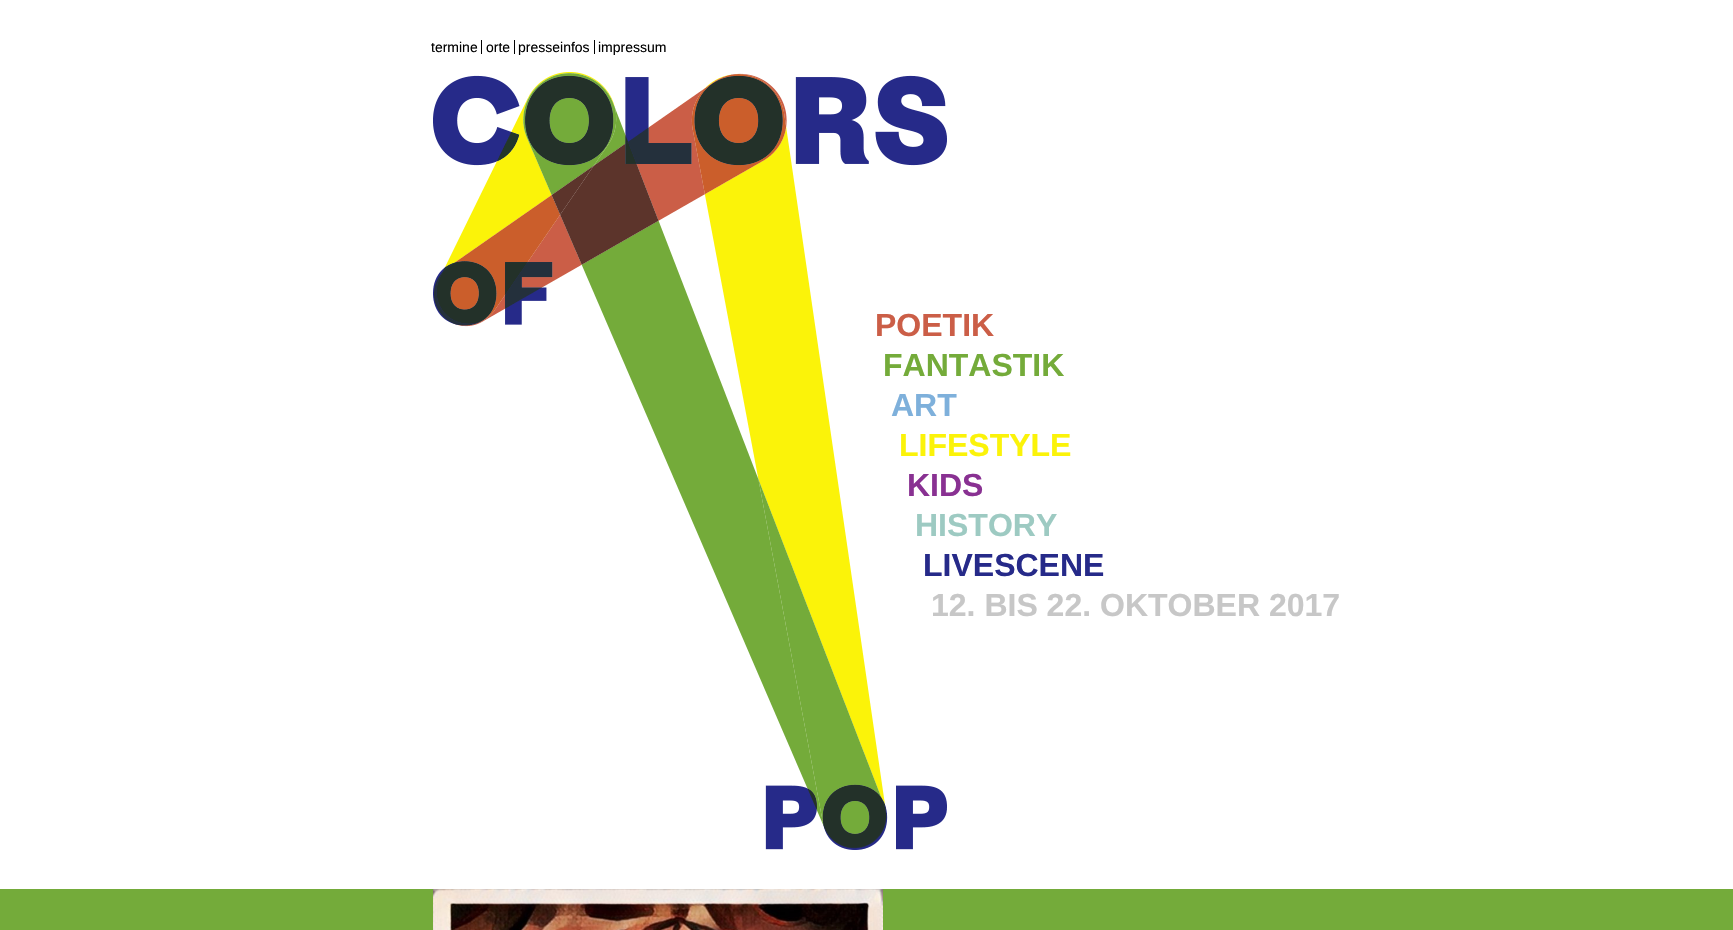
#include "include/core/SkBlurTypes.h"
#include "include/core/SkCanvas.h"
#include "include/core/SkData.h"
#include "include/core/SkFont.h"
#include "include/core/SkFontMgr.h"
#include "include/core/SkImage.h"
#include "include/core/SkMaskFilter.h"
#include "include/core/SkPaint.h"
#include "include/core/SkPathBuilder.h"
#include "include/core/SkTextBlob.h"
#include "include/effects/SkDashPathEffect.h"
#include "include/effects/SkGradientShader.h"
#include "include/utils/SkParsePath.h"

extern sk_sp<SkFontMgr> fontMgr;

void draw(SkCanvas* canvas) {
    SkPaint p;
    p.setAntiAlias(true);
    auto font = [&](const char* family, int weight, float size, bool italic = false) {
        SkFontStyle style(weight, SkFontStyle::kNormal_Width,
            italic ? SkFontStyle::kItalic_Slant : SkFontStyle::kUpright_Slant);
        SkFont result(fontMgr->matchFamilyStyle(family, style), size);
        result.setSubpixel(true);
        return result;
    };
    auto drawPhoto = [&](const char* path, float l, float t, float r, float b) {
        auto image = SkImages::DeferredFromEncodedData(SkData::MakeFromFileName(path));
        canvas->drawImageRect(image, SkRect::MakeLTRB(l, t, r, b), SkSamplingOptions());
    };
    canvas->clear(0xFF74AB3A);
    p.setColor(0xFFFFFFFF);
    canvas->drawRect(SkRect::MakeLTRB(0, 0, 1733, 889), p);
    auto font1 = font("Liberation Sans", 400, 14);
    p.setColor(0xFF000000);
    canvas->drawString("termine", 431, 52, font1, p);
    canvas->drawRect(SkRect::MakeLTRB(481, 40, 482, 54), p);
    canvas->drawString("orte", 486, 52, font1, p);
    canvas->drawRect(SkRect::MakeLTRB(514, 40, 515, 54), p);
    canvas->drawString("presseinfos", 518, 52, font1, p);
    canvas->drawRect(SkRect::MakeLTRB(594, 40, 595, 54), p);
    canvas->drawString("impressum", 598, 52, font1, p);
    drawPhoto("media/1.png", 433, 72, 947, 850);
    auto font2 = font("Liberation Sans", 700, 32);
    p.setColor(0xFFCB5E47);
    canvas->drawString("POETIK", 875, 336, font2, p);
    p.setColor(0xFF74AB3A);
    canvas->drawString("FANTASTIK", 883, 376, font2, p);
    p.setColor(0xFF7EB0DB);
    canvas->drawString("ART", 891, 416, font2, p);
    p.setColor(0xFFFBF309);
    canvas->drawString("LIFESTYLE", 899, 456, font2, p);
    p.setColor(0xFF893192);
    canvas->drawString("KIDS", 907, 496, font2, p);
    p.setColor(0xFF9DCAC2);
    canvas->drawString("HISTORY", 915, 536, font2, p);
    p.setColor(0xFF262A89);
    canvas->drawString("LIVESCENE", 923, 576, font2, p);
    p.setColor(0xFFC7C7C7);
    canvas->drawString("12. BIS 22. OKTOBER 2017", 931, 616, font2, p);
    drawPhoto("media/2.png", 433, 889, 883, 930);
}
